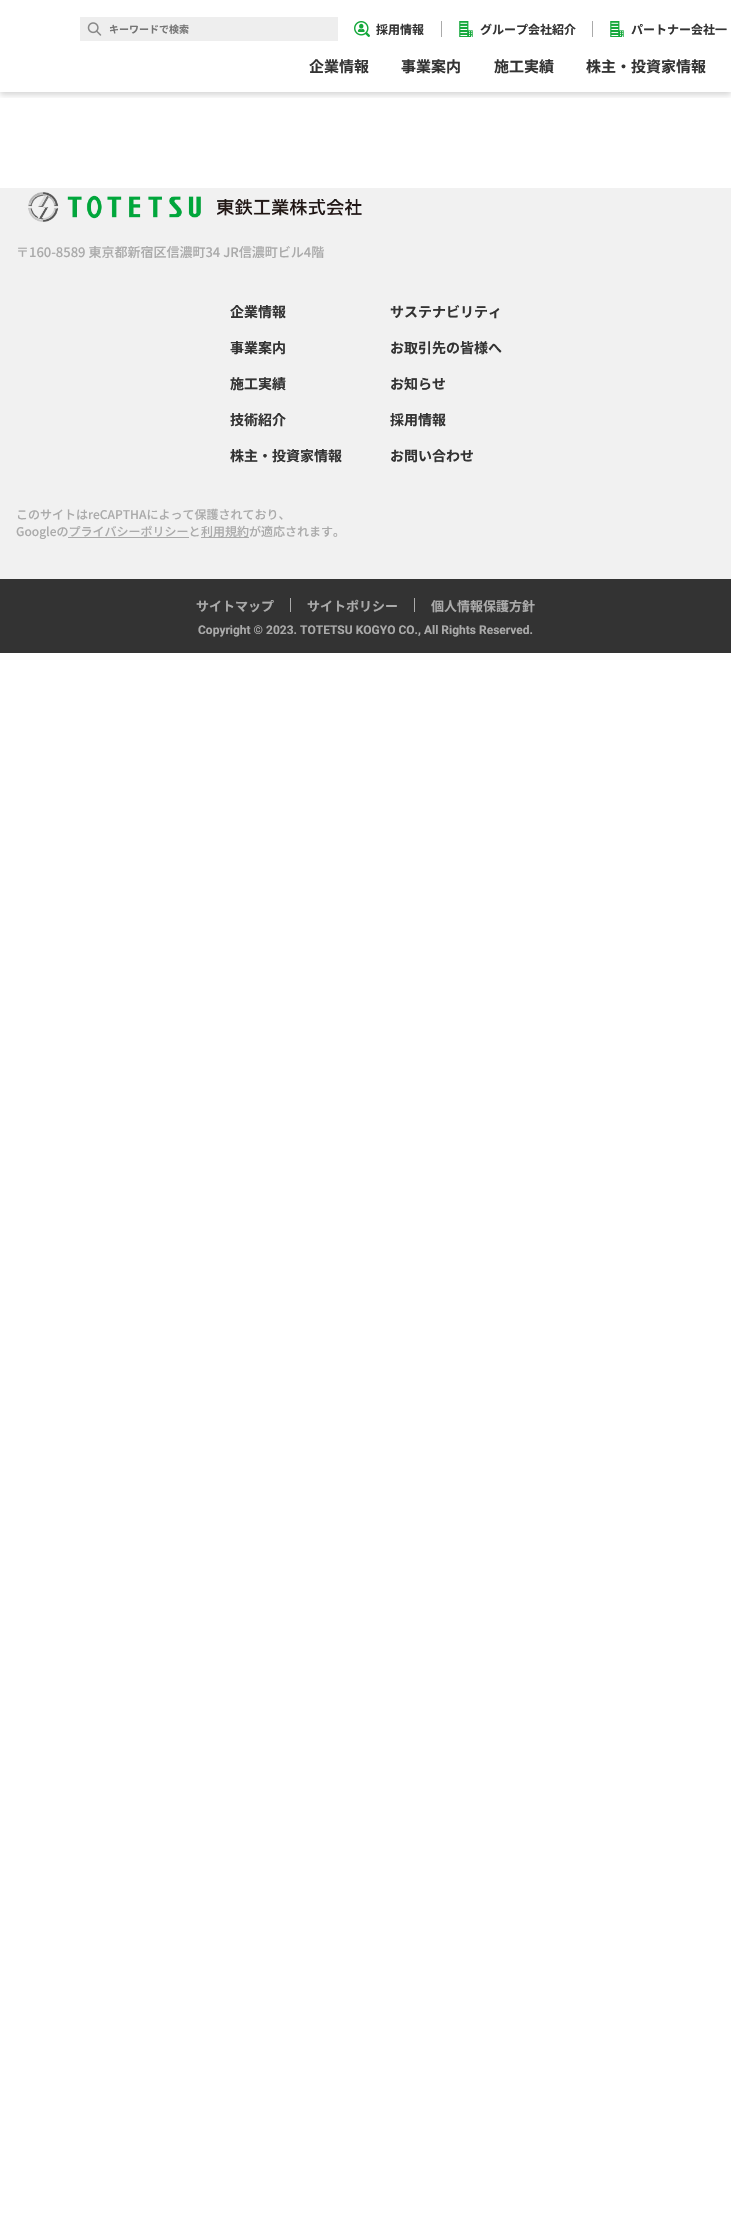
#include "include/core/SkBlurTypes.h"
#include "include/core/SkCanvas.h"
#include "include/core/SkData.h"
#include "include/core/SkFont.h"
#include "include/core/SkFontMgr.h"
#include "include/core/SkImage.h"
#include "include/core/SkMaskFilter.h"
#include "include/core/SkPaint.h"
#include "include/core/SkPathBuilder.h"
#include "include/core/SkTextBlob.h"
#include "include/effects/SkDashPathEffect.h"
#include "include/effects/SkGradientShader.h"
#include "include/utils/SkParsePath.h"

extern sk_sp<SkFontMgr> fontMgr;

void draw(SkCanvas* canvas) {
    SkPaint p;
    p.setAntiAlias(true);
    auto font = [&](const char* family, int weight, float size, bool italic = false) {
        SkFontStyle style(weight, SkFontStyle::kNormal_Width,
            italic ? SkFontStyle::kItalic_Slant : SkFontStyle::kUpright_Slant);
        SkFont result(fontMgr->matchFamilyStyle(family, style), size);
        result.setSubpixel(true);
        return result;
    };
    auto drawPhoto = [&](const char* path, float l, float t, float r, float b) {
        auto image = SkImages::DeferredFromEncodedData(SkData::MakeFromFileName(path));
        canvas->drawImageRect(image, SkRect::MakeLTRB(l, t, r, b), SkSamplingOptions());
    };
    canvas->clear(0xFFFFFFFF);
    canvas->save();
    canvas->clipRect(SkRect::MakeLTRB(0, 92, 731, 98));
    p.setColor(0x29000000);
    p.setMaskFilter(SkMaskFilter::MakeBlur(kNormal_SkBlurStyle, 3));
    canvas->drawRect(SkRect::MakeLTRB(0, 3, 731, 95), p);
    p.setMaskFilter(nullptr);
    canvas->restore();
    p.setColor(0xFFEEEEEE);
    canvas->drawRect(SkRect::MakeLTRB(80, 17, 338, 41), p);
    drawPhoto("media/1.png", 87, 22, 102, 36);
    auto font1 = font("Noto Sans JP", 700, 10);
    p.setColor(0xFF757575);
    canvas->drawString("キーワードで検索", 109, 33, font1, p);
    drawPhoto("media/2.png", 354, 21, 370, 37);
    auto font2 = font("Noto Sans JP", 700, 12);
    p.setColor(0xFF333333);
    canvas->drawString("採用情報", 376, 34, font2, p);
    p.setColor(0xFFAAAAAA);
    canvas->drawRect(SkRect::MakeLTRB(441, 21, 442, 37), p);
    drawPhoto("media/3.png", 459, 21, 473, 37);
    p.setColor(0xFF333333);
    canvas->drawString("グループ会社紹介", 480, 34, font2, p);
    p.setColor(0xFFAAAAAA);
    canvas->drawRect(SkRect::MakeLTRB(592, 21, 593, 37), p);
    drawPhoto("media/3.png", 610, 21, 624, 37);
    p.setColor(0xFF333333);
    canvas->drawString("パートナー会社一", 631, 34, font2, p);
    auto font3 = font("Noto Sans JP", 700, 15);
    {
        const struct { const char* s; float x, y; } items[] = {
            {"企業情報", 309, 72},
            {"事業案内", 401, 72},
            {"施工実績", 494, 72},
            {"株主・投資家情報", 586, 72},
        };
        for (auto [s, x, y] : items) {
            canvas->drawString(s, x, y, font3, p);
        }
    }
    p.setColor(0xFFF1F1F1);
    canvas->drawRect(SkRect::MakeLTRB(0, 188, 731, 579), p);
    drawPhoto("media/4.png", 28, 192, 362, 222);
    auto font4 = font("Noto Sans JP", 500, 13);
    p.setColor(0xFFAAAAAA);
    canvas->drawString("〒160-8589 東京都新宿区信濃町34 JR信濃町ビル4階", 16, 257, font4, p);
    auto font5 = font("Noto Sans JP", 700, 14);
    p.setColor(0xFF333333);
    {
        const struct { const char* s; float x, y; } items[] = {
            {"企業情報", 230, 317},
            {"事業案内", 230, 353},
            {"施工実績", 230, 389},
            {"技術紹介", 230, 425},
            {"サステナビリティ", 390, 317},
            {"お取引先の皆様へ", 390, 353},
            {"株主・投資家情報", 230, 461},
            {"お知らせ", 390, 389},
            {"採用情報", 390, 425},
            {"お問い合わせ", 390, 461},
        };
        for (auto [s, x, y] : items) {
            canvas->drawString(s, x, y, font5, p);
        }
    }
    auto font6 = font("Noto Sans JP", 500, 12);
    p.setColor(0xFFAAAAAA);
    canvas->drawString("このサイトはreCAPTHAによって保護されており、", 16, 519, font6, p);
    canvas->drawString("Googleのプライバシーポリシーと", 16, 536, font6, p);
    canvas->drawRect(SkRect::MakeLTRB(201, 537, 249, 538), p);
    canvas->drawString("利用規約が適応されます。", 201, 536, font6, p);
    canvas->drawRect(SkRect::MakeLTRB(68, 537, 189, 538), p);
    p.setColor(0xFF333333);
    canvas->drawRect(SkRect::MakeLTRB(0, 579, 731, 653), p);
    auto font7 = font("Noto Sans JP", 700, 13);
    p.setColor(0xFFAAAAAA);
    canvas->drawString("サイトマップ", 196, 611, font7, p);
    canvas->drawRect(SkRect::MakeLTRB(290, 598, 291, 612), p);
    canvas->drawString("サイトポリシー", 307, 611, font7, p);
    canvas->drawRect(SkRect::MakeLTRB(414, 598, 415, 612), p);
    canvas->drawString("個人情報保護方針", 431, 611, font7, p);
    auto font8 = font("Roboto", 700, 12);
    canvas->drawString("Copyright © 2023. TOTETSU KOGYO CO., All Rights Reserved.", 198, 634, font8, p);
}
